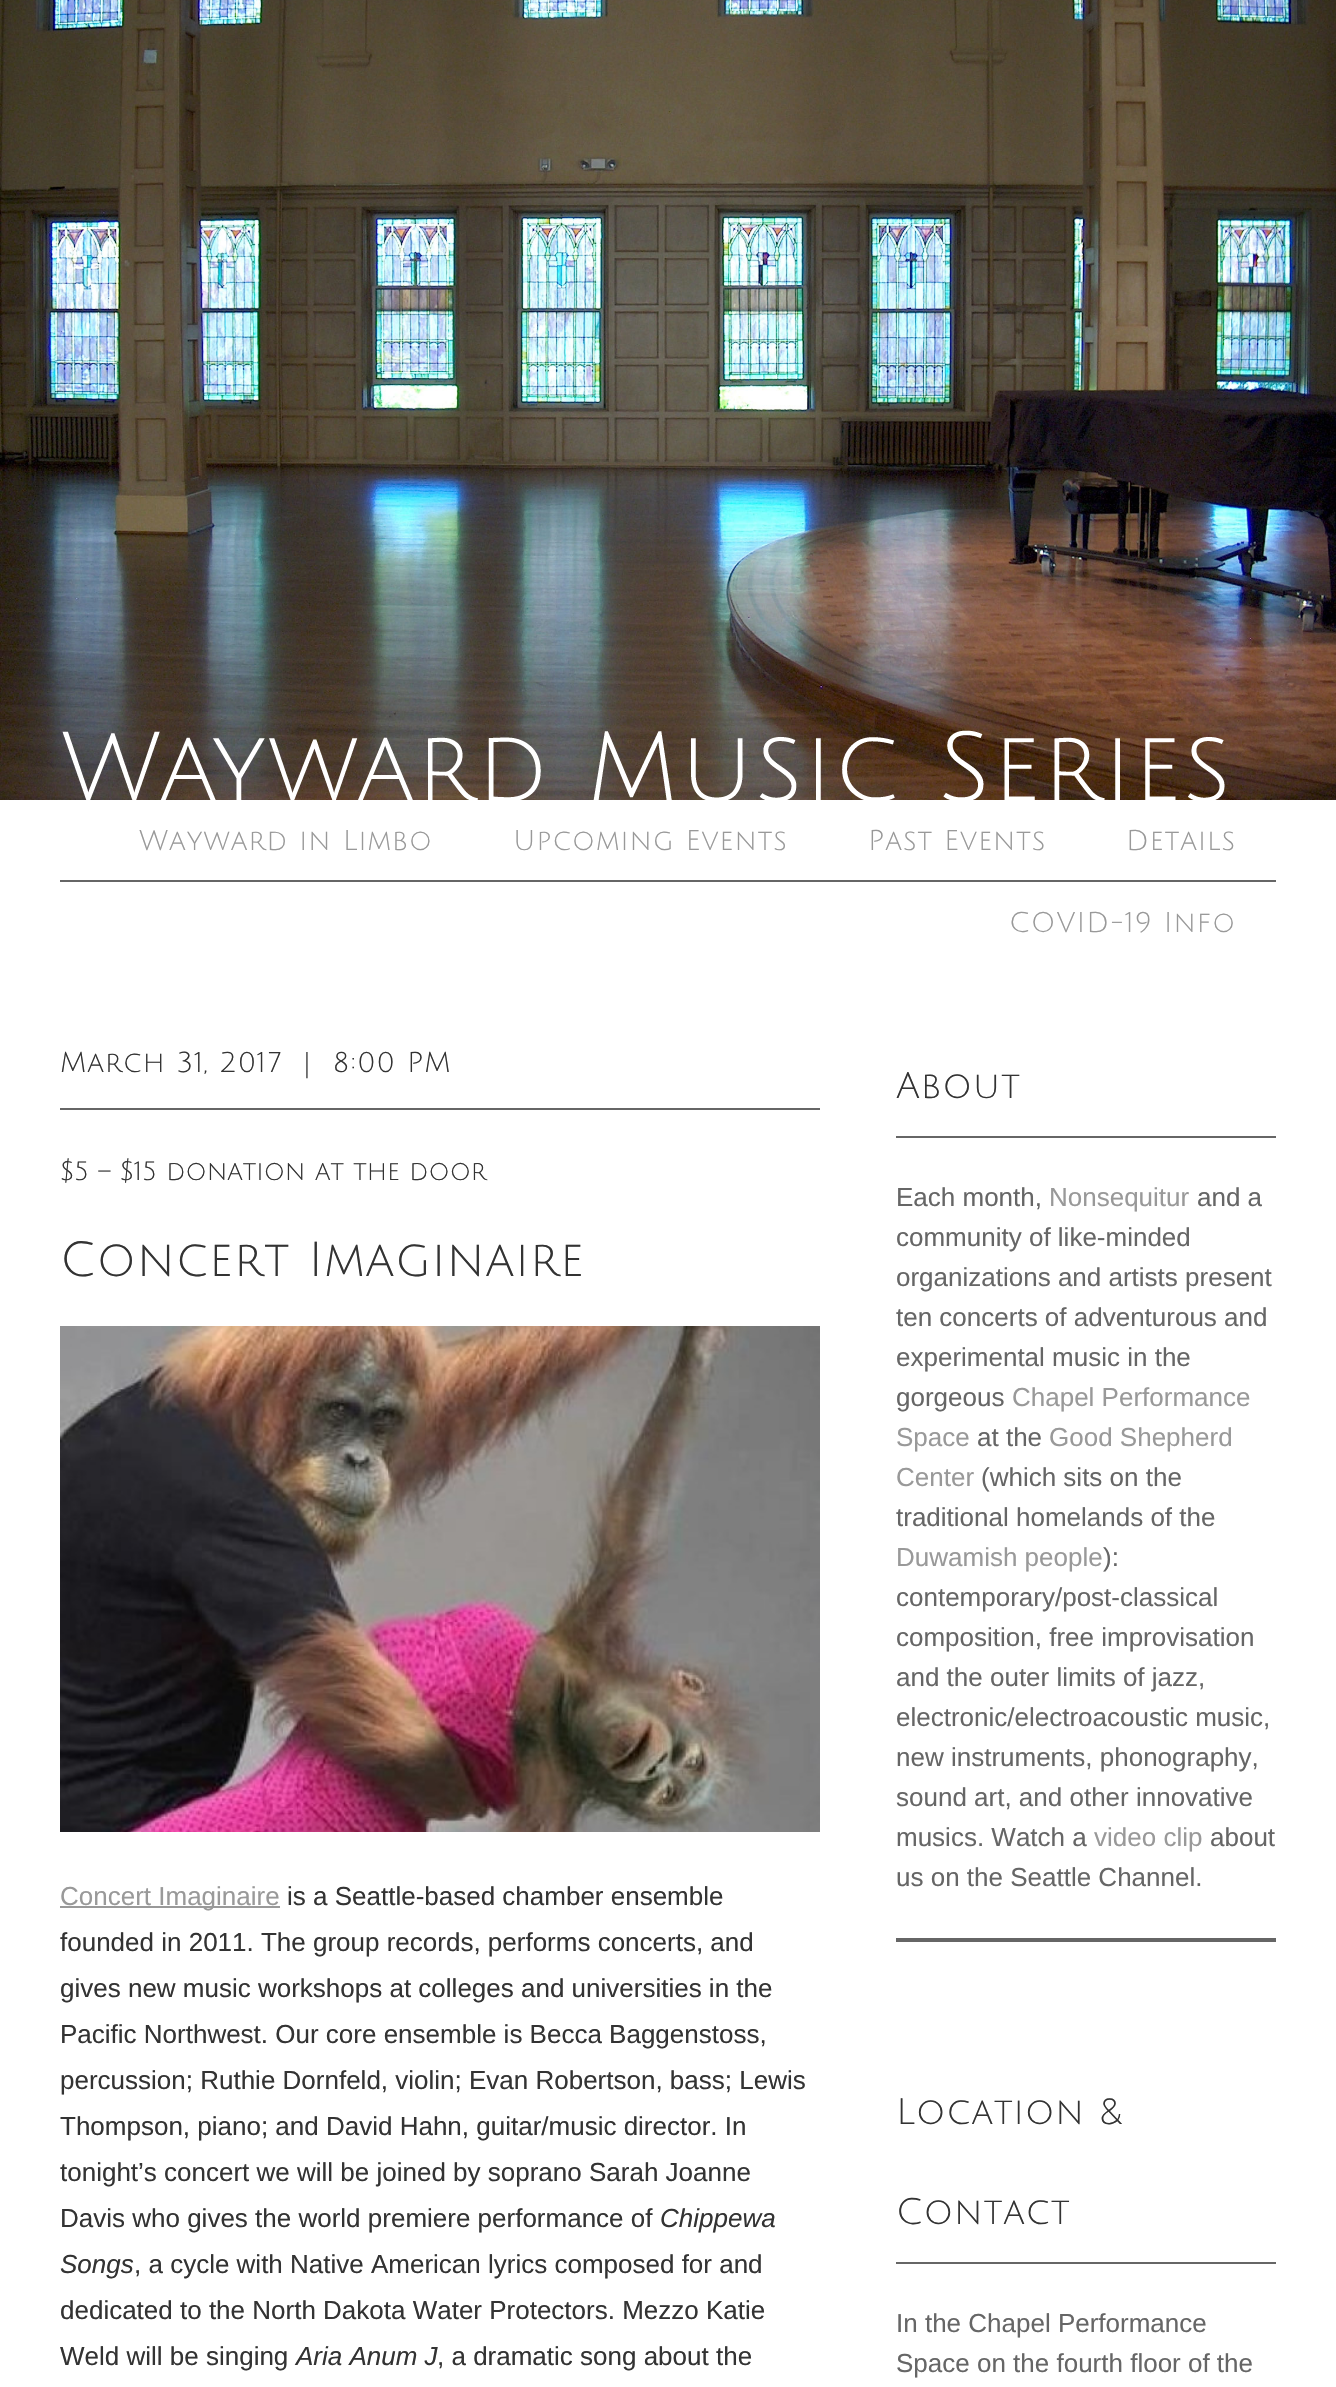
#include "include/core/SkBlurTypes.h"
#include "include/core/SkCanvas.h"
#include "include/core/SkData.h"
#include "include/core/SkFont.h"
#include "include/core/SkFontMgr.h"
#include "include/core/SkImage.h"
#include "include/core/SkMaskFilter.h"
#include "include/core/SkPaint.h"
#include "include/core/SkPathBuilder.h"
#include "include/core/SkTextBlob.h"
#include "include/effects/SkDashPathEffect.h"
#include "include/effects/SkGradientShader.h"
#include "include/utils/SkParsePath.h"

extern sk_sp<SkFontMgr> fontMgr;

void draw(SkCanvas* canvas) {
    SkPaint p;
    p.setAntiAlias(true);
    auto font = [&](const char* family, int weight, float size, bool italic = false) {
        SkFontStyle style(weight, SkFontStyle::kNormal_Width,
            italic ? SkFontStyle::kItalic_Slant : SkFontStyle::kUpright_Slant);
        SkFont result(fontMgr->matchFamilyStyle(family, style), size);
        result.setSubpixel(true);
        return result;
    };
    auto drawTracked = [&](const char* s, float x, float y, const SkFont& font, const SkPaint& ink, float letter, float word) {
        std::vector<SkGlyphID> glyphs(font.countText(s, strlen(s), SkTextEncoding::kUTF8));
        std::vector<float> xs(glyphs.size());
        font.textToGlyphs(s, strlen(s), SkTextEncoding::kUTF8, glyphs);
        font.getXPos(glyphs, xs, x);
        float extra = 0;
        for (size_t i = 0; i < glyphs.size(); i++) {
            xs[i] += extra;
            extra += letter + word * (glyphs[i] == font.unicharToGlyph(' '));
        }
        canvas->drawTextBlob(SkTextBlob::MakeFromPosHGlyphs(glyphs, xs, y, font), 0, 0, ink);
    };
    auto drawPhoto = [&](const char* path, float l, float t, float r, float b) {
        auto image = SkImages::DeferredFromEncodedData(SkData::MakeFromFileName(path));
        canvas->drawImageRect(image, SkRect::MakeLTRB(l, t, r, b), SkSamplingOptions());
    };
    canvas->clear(0xFFFFFFFF);
    drawPhoto("media/1.png", 0, 0, 1336, 800);
    drawPhoto("media/2.png", 62, 730, 1225, 800);
    p.setColor(0xFF666666);
    canvas->drawRect(SkRect::MakeLTRB(60, 880, 1276, 882), p);
    auto font1 = font("Julius Sans One", 400, 28);
    p.setColor(0xFF999999);
    {
        const struct { const char* s; float x, y; } items[] = {
            {"Wayward in Limbo", 139, 850},
            {"Upcoming Events", 513, 850},
            {"Past Events", 868, 850},
            {"Details", 1126, 850},
            {"COVID-19 Info", 1009, 932},
        };
        for (auto [s, x, y] : items) {
            drawTracked(s, x, y, font1, p, 1, 0);
        }
    }
    p.setColor(0xFF666666);
    canvas->drawRect(SkRect::MakeLTRB(60, 1108, 820, 1110), p);
    p.setColor(0xFF333333);
    {
        const struct { const char* s; float x, y; } items[] = {
            {"March 31, 2017", 60, 1072},
            {"|", 303, 1072},
            {"8:00 PM", 333, 1072},
        };
        for (auto [s, x, y] : items) {
            drawTracked(s, x, y, font1, p, 1, 0);
        }
    }
    auto font2 = font("Julius Sans One", 400, 26);
    canvas->drawString("$5 – $15 donation at the door", 60, 1180, font2, p);
    auto font3 = font("Julius Sans One", 400, 48);
    drawTracked("Concert Imaginaire", 60, 1276, font3, p, 1, 0);
    drawPhoto("media/3.png", 60, 1326, 820, 1832);
    p.setColor(0xFF999999);
    canvas->drawRect(SkRect::MakeLTRB(60, 1906, 280, 1908), p);
    auto font4 = font("Liberation Sans", 400, 26);
    canvas->drawString("Concert Imaginaire", 60, 1905, font4, p);
    p.setColor(0xFF333333);
    {
        const struct { const char* s; float x, y; } items[] = {
            {"is a Seattle-based chamber ensemble", 287, 1905},
            {"founded in 2011. The group records, performs concerts, and", 60, 1951},
            {"gives new music workshops at colleges and universities in the", 60, 1997},
            {"Pacific Northwest. Our core ensemble is Becca Baggenstoss,", 60, 2043},
            {"percussion; Ruthie Dornfeld, violin; Evan Robertson, bass; Lewis", 60, 2089},
            {"Thompson, piano; and David Hahn, guitar/music director. In", 60, 2135},
            {"tonight’s concert we will be joined by soprano Sarah Joanne", 60, 2181},
            {"Davis who gives the world premiere performance of", 60, 2227},
        };
        for (auto [s, x, y] : items) {
            canvas->drawString(s, x, y, font4, p);
        }
    }
    auto font5 = font("Liberation Sans", 400, 26, true);
    canvas->drawString("Chippewa", 660, 2227, font5, p);
    canvas->drawString("Songs", 60, 2273, font5, p);
    {
        const struct { const char* s; float x, y; } items[] = {
            {", a cycle with Native American lyrics composed for and", 134, 2273},
            {"dedicated to the North Dakota Water Protectors. Mezzo Katie", 60, 2319},
            {"Weld will be singing", 60, 2365},
        };
        for (auto [s, x, y] : items) {
            canvas->drawString(s, x, y, font4, p);
        }
    }
    canvas->drawString("Aria Anum J", 296, 2365, font5, p);
    canvas->drawString(", a dramatic song about the", 437, 2365, font4, p);
    p.setColor(0xFF666666);
    canvas->drawRect(SkRect::MakeLTRB(896, 1938, 1276, 1942), p);
    canvas->drawRect(SkRect::MakeLTRB(896, 1136, 1276, 1138), p);
    auto font6 = font("Julius Sans One", 400, 36);
    p.setColor(0xFF333333);
    drawTracked("About", 896, 1098, font6, p, 1, 0);
    p.setColor(0xFF666666);
    canvas->drawString("Each month,", 896, 1206, font4, p);
    p.setColor(0xFF999999);
    canvas->drawString("Nonsequitur", 1049, 1206, font4, p);
    p.setColor(0xFF666666);
    {
        const struct { const char* s; float x, y; } items[] = {
            {"and a", 1197, 1206},
            {"community of like-minded", 896, 1246},
            {"organizations and artists present", 896, 1286},
            {"ten concerts of adventurous and", 896, 1326},
            {"experimental music in the", 896, 1366},
            {"gorgeous", 896, 1406},
        };
        for (auto [s, x, y] : items) {
            canvas->drawString(s, x, y, font4, p);
        }
    }
    p.setColor(0xFF999999);
    canvas->drawString("Chapel Performance", 1012, 1406, font4, p);
    canvas->drawString("Space", 896, 1446, font4, p);
    p.setColor(0xFF666666);
    canvas->drawString("at the", 977, 1446, font4, p);
    p.setColor(0xFF999999);
    canvas->drawString("Good Shepherd", 1049, 1446, font4, p);
    canvas->drawString("Center", 896, 1486, font4, p);
    p.setColor(0xFF666666);
    canvas->drawString("(which sits on the", 981, 1486, font4, p);
    canvas->drawString("traditional homelands of the", 896, 1526, font4, p);
    p.setColor(0xFF999999);
    canvas->drawString("Duwamish people", 896, 1566, font4, p);
    p.setColor(0xFF666666);
    {
        const struct { const char* s; float x, y; } items[] = {
            {"):", 1103, 1566},
            {"contemporary/post-classical", 896, 1606},
            {"composition, free improvisation", 896, 1646},
            {"and the outer limits of jazz,", 896, 1686},
            {"electronic/electroacoustic music,", 896, 1726},
            {"new instruments, phonography,", 896, 1766},
            {"sound art, and other innovative", 896, 1806},
            {"musics. Watch a", 896, 1846},
        };
        for (auto [s, x, y] : items) {
            canvas->drawString(s, x, y, font4, p);
        }
    }
    p.setColor(0xFF999999);
    canvas->drawString("video clip", 1094, 1846, font4, p);
    p.setColor(0xFF666666);
    canvas->drawString("about", 1210, 1846, font4, p);
    canvas->drawString("us on the Seattle Channel.", 896, 1886, font4, p);
    canvas->drawRect(SkRect::MakeLTRB(896, 2262, 1276, 2264), p);
    p.setColor(0xFF333333);
    drawTracked("Location &", 896, 2124, font6, p, 1, 0);
    drawTracked("Contact", 896, 2224, font6, p, 1, 0);
    p.setColor(0xFF666666);
    canvas->drawString("In the Chapel Performance", 896, 2332, font4, p);
    canvas->drawString("Space on the fourth floor of the", 896, 2372, font4, p);
}
